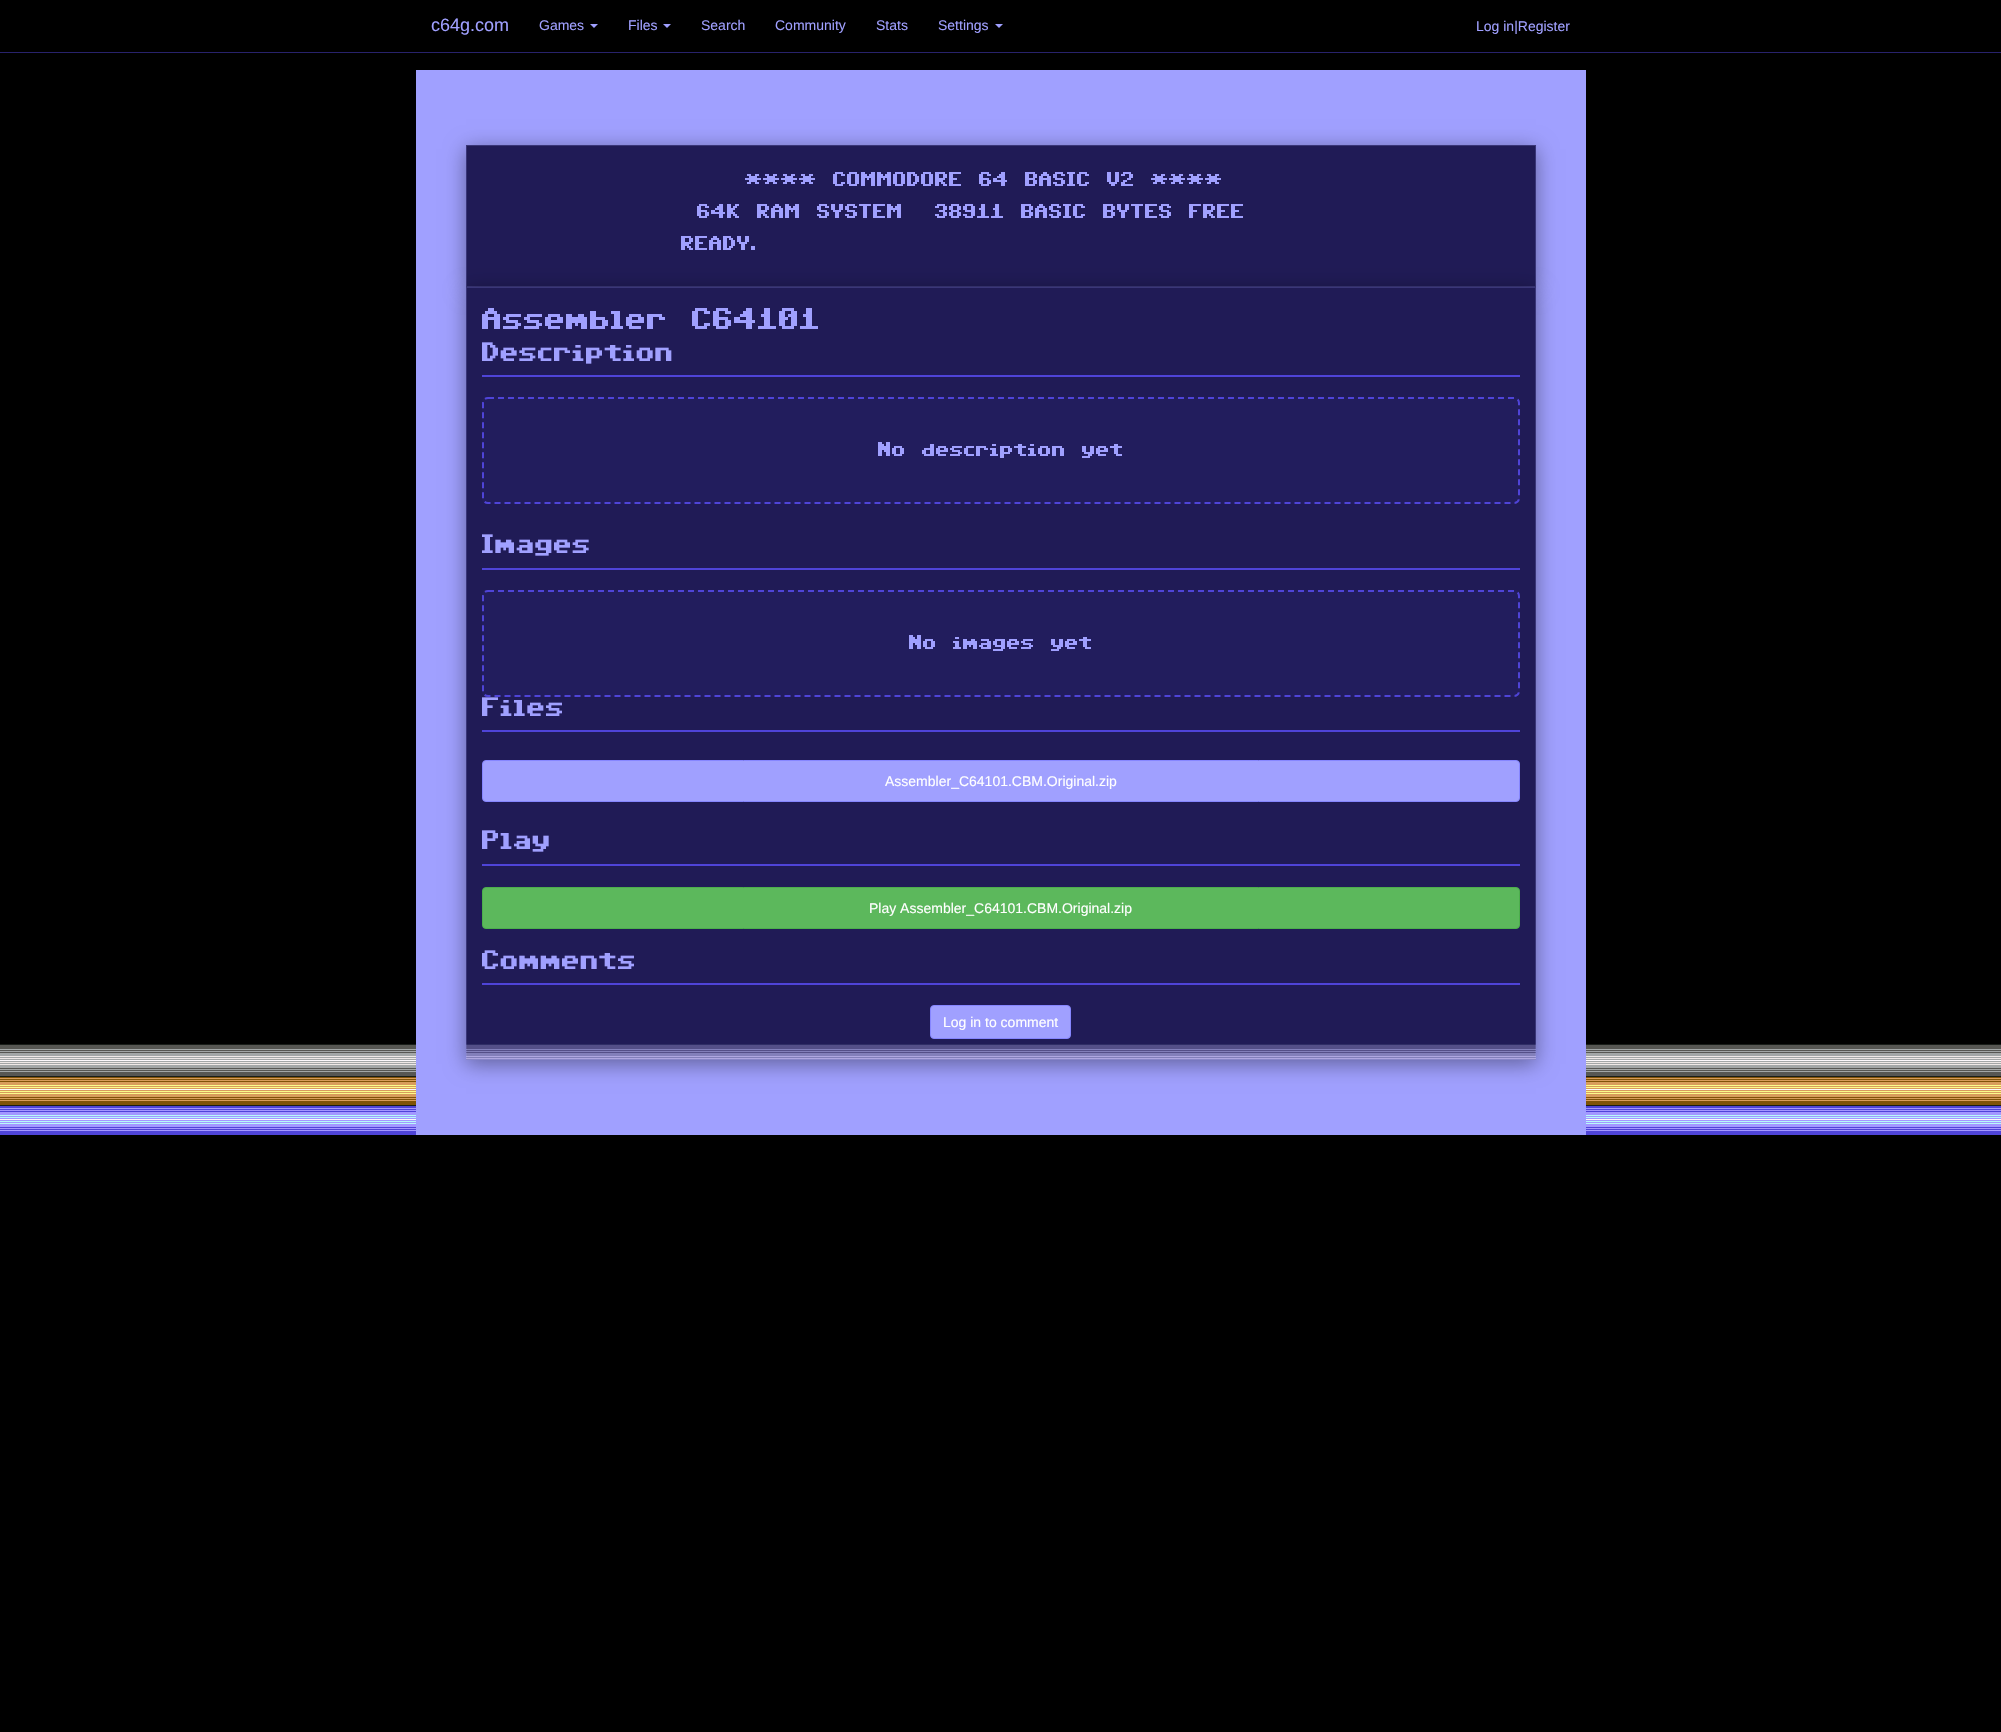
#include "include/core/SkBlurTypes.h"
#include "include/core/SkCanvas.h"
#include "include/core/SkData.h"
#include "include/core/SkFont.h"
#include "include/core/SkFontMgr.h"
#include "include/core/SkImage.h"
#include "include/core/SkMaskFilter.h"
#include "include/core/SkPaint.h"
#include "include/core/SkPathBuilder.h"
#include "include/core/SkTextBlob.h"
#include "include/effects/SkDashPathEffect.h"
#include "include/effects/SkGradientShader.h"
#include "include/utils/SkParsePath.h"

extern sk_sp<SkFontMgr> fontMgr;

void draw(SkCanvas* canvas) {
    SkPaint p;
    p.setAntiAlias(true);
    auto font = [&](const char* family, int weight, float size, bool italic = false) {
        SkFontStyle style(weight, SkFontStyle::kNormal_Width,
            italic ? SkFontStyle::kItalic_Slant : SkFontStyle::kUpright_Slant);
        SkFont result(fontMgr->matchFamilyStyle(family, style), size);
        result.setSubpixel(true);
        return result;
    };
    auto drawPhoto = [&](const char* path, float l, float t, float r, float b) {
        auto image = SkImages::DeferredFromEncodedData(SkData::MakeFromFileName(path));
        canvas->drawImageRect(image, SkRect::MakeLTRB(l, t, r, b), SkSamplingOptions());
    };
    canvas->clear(0xFF000000);
    drawPhoto("media/1.png", 0, 1044, 2001, 1135);
    p.setColor(0xFF28226C);
    canvas->drawRect(SkRect::MakeLTRB(0, 52, 2001, 53), p);
    auto font1 = font("Liberation Sans", 400, 18);
    p.setColor(0xFFA0A0FF);
    canvas->drawString("c64g.com", 431, 31, font1, p);
    auto font2 = font("Liberation Sans", 400, 14);
    canvas->drawString("Games", 539, 30, font2, p);
    canvas->drawPath(SkPathBuilder().moveTo(590, 24).lineTo(598, 24).lineTo(594, 28).close().detach(), p);
    canvas->drawString("Files", 628, 30, font2, p);
    canvas->drawPath(SkPathBuilder().moveTo(663, 24).lineTo(671, 24).lineTo(667, 28).close().detach(), p);
    {
        const struct { const char* s; float x, y; } items[] = {
            {"Search", 701, 30},
            {"Community", 775, 30},
            {"Stats", 876, 30},
            {"Settings", 938, 30},
        };
        for (auto [s, x, y] : items) {
            canvas->drawString(s, x, y, font2, p);
        }
    }
    canvas->drawPath(SkPathBuilder().moveTo(995, 24).lineTo(1003, 24).lineTo(999, 28).close().detach(), p);
    canvas->drawString("Log in|Register", 1476, 31, font2, p);
    p.setStyle(SkPaint::kStroke_Style);
    p.setStrokeWidth(50);
    canvas->drawPath(SkPathBuilder().moveTo(441, 95).lineTo(1561, 95).lineTo(1561, 1110).lineTo(441, 1110).close().detach(), p);
    p.setStyle(SkPaint::kFill_Style);
    canvas->drawRect(SkRect::MakeLTRB(466, 120, 1536, 145), p);
    canvas->drawRect(SkRect::MakeLTRB(466, 1060, 1536, 1085), p);
    p.setColor(0x66000000);
    p.setMaskFilter(SkMaskFilter::MakeBlur(kNormal_SkBlurStyle, 10));
    canvas->drawRect(SkRect::MakeLTRB(466, 149, 1536, 291), p);
    p.setMaskFilter(nullptr);
    p.setColor(0xFF201B56);
    canvas->drawRect(SkRect::MakeLTRB(466.5f, 145.5f, 1535.5f, 286.5f), p);
    p.setStyle(SkPaint::kStroke_Style);
    p.setStrokeWidth(1);
    p.setColor(0xFF3A3678);
    canvas->drawRect(SkRect::MakeLTRB(466.5f, 145.5f, 1535.5f, 286.5f), p);
    drawPhoto("media/2.png", 681, 172, 1243, 250);
    canvas->save();
    canvas->clipPath(SkPathBuilder(SkPathFillType::kEvenOdd).moveTo(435, 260).lineTo(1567, 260).lineTo(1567, 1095).lineTo(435, 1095).close().moveTo(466, 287).lineTo(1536, 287).lineTo(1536, 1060).lineTo(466, 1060).close().detach(), true);
    p.setStyle(SkPaint::kFill_Style);
    p.setColor(0x66000000);
    p.setMaskFilter(SkMaskFilter::MakeBlur(kNormal_SkBlurStyle, 10));
    canvas->drawRect(SkRect::MakeLTRB(466, 291, 1536, 1064), p);
    p.setMaskFilter(nullptr);
    canvas->restore();
    p.setColor(0x664F44D8);
    canvas->drawRect(SkRect::MakeLTRB(466, 287, 1536, 1060), p);
    p.setStyle(SkPaint::kStroke_Style);
    p.setColor(0x33A0A0FF);
    canvas->drawRect(SkRect::MakeLTRB(466.5f, 287.5f, 1535.5f, 1059.5f), p);
    drawPhoto("media/3.png", 482, 308, 818, 329);
    p.setStyle(SkPaint::kFill_Style);
    p.setColor(0xFF4F44D8);
    canvas->drawRect(SkRect::MakeLTRB(482, 375, 1520, 377), p);
    drawPhoto("media/4.png", 482, 342, 672, 364);
    p.setColor(0xFF221D5D);
    canvas->drawRoundRect(SkRect::MakeLTRB(482, 397, 1520, 504), 6, 6, p);
    p.setStyle(SkPaint::kStroke_Style);
    p.setStrokeWidth(2);
    p.setColor(0xFF4F44D8);
    p.setPathEffect(SkDashPathEffect::Make({{6, 4}}, 0));
    canvas->drawPath(SkPathBuilder().moveTo(488, 398).lineTo(1514, 398).cubicTo(1517, 398, 1519, 400, 1519, 403).lineTo(1519, 498).cubicTo(1519, 501, 1517, 503, 1514, 503).lineTo(488, 503).cubicTo(485, 503, 483, 501, 483, 498).lineTo(483, 403).cubicTo(483, 400, 485, 398, 488, 398).close().detach(), p);
    p.setPathEffect(nullptr);
    drawPhoto("media/5.png", 878, 442, 1122, 458);
    p.setStyle(SkPaint::kFill_Style);
    canvas->drawRect(SkRect::MakeLTRB(482, 568, 1520, 570), p);
    drawPhoto("media/6.png", 482, 534, 589, 556);
    p.setColor(0xFF221D5D);
    canvas->drawRoundRect(SkRect::MakeLTRB(482, 590, 1520, 697), 6, 6, p);
    p.setStyle(SkPaint::kStroke_Style);
    p.setColor(0xFF4F44D8);
    p.setPathEffect(SkDashPathEffect::Make({{6, 4}}, 0));
    canvas->drawPath(SkPathBuilder().moveTo(488, 591).lineTo(1514, 591).cubicTo(1517, 591, 1519, 593, 1519, 596).lineTo(1519, 691).cubicTo(1519, 694, 1517, 696, 1514, 696).lineTo(488, 696).cubicTo(485, 696, 483, 694, 483, 691).lineTo(483, 596).cubicTo(483, 593, 485, 591, 488, 591).close().detach(), p);
    p.setPathEffect(nullptr);
    drawPhoto("media/7.png", 909, 635, 1091, 651);
    p.setStyle(SkPaint::kFill_Style);
    canvas->drawRect(SkRect::MakeLTRB(482, 730, 1520, 732), p);
    drawPhoto("media/8.png", 482, 697, 562, 716);
    p.setColor(0xFFA0A0FF);
    canvas->drawRoundRect(SkRect::MakeLTRB(482.5f, 760.5f, 1519.5f, 801.5f), 3.5f, 3.5f, p);
    p.setStyle(SkPaint::kStroke_Style);
    p.setStrokeWidth(1);
    p.setColor(0xFF8686FF);
    canvas->drawRoundRect(SkRect::MakeLTRB(482.5f, 760.5f, 1519.5f, 801.5f), 3.5f, 3.5f, p);
    p.setStyle(SkPaint::kFill_Style);
    p.setColor(0xFFFFFFFF);
    canvas->drawString("Assembler_C64101.CBM.Original.zip", 885, 786, font2, p);
    p.setColor(0xFF4F44D8);
    canvas->drawRect(SkRect::MakeLTRB(482, 864, 1520, 866), p);
    drawPhoto("media/9.png", 482, 830, 549, 852);
    p.setColor(0xFF5CB85C);
    canvas->drawRoundRect(SkRect::MakeLTRB(482.5f, 887.5f, 1519.5f, 928.5f), 3.5f, 3.5f, p);
    p.setStyle(SkPaint::kStroke_Style);
    p.setColor(0xFF4CAE4C);
    canvas->drawRoundRect(SkRect::MakeLTRB(482.5f, 887.5f, 1519.5f, 928.5f), 3.5f, 3.5f, p);
    p.setStyle(SkPaint::kFill_Style);
    p.setColor(0xFFFFFFFF);
    canvas->drawString("Play Assembler_C64101.CBM.Original.zip", 869, 913, font2, p);
    p.setColor(0xFF4F44D8);
    canvas->drawRect(SkRect::MakeLTRB(482, 983, 1520, 985), p);
    drawPhoto("media/10.png", 482, 950, 634, 969);
    p.setColor(0xFFA0A0FF);
    canvas->drawRoundRect(SkRect::MakeLTRB(930.5f, 1005.5f, 1070.5f, 1038.5f), 3.5f, 3.5f, p);
    p.setStyle(SkPaint::kStroke_Style);
    p.setColor(0xFF8686FF);
    canvas->drawRoundRect(SkRect::MakeLTRB(930.5f, 1005.5f, 1070.5f, 1038.5f), 3.5f, 3.5f, p);
    p.setStyle(SkPaint::kFill_Style);
    p.setColor(0xFFFFFFFF);
    canvas->drawString("Log in to comment", 943, 1027, font2, p);
}
